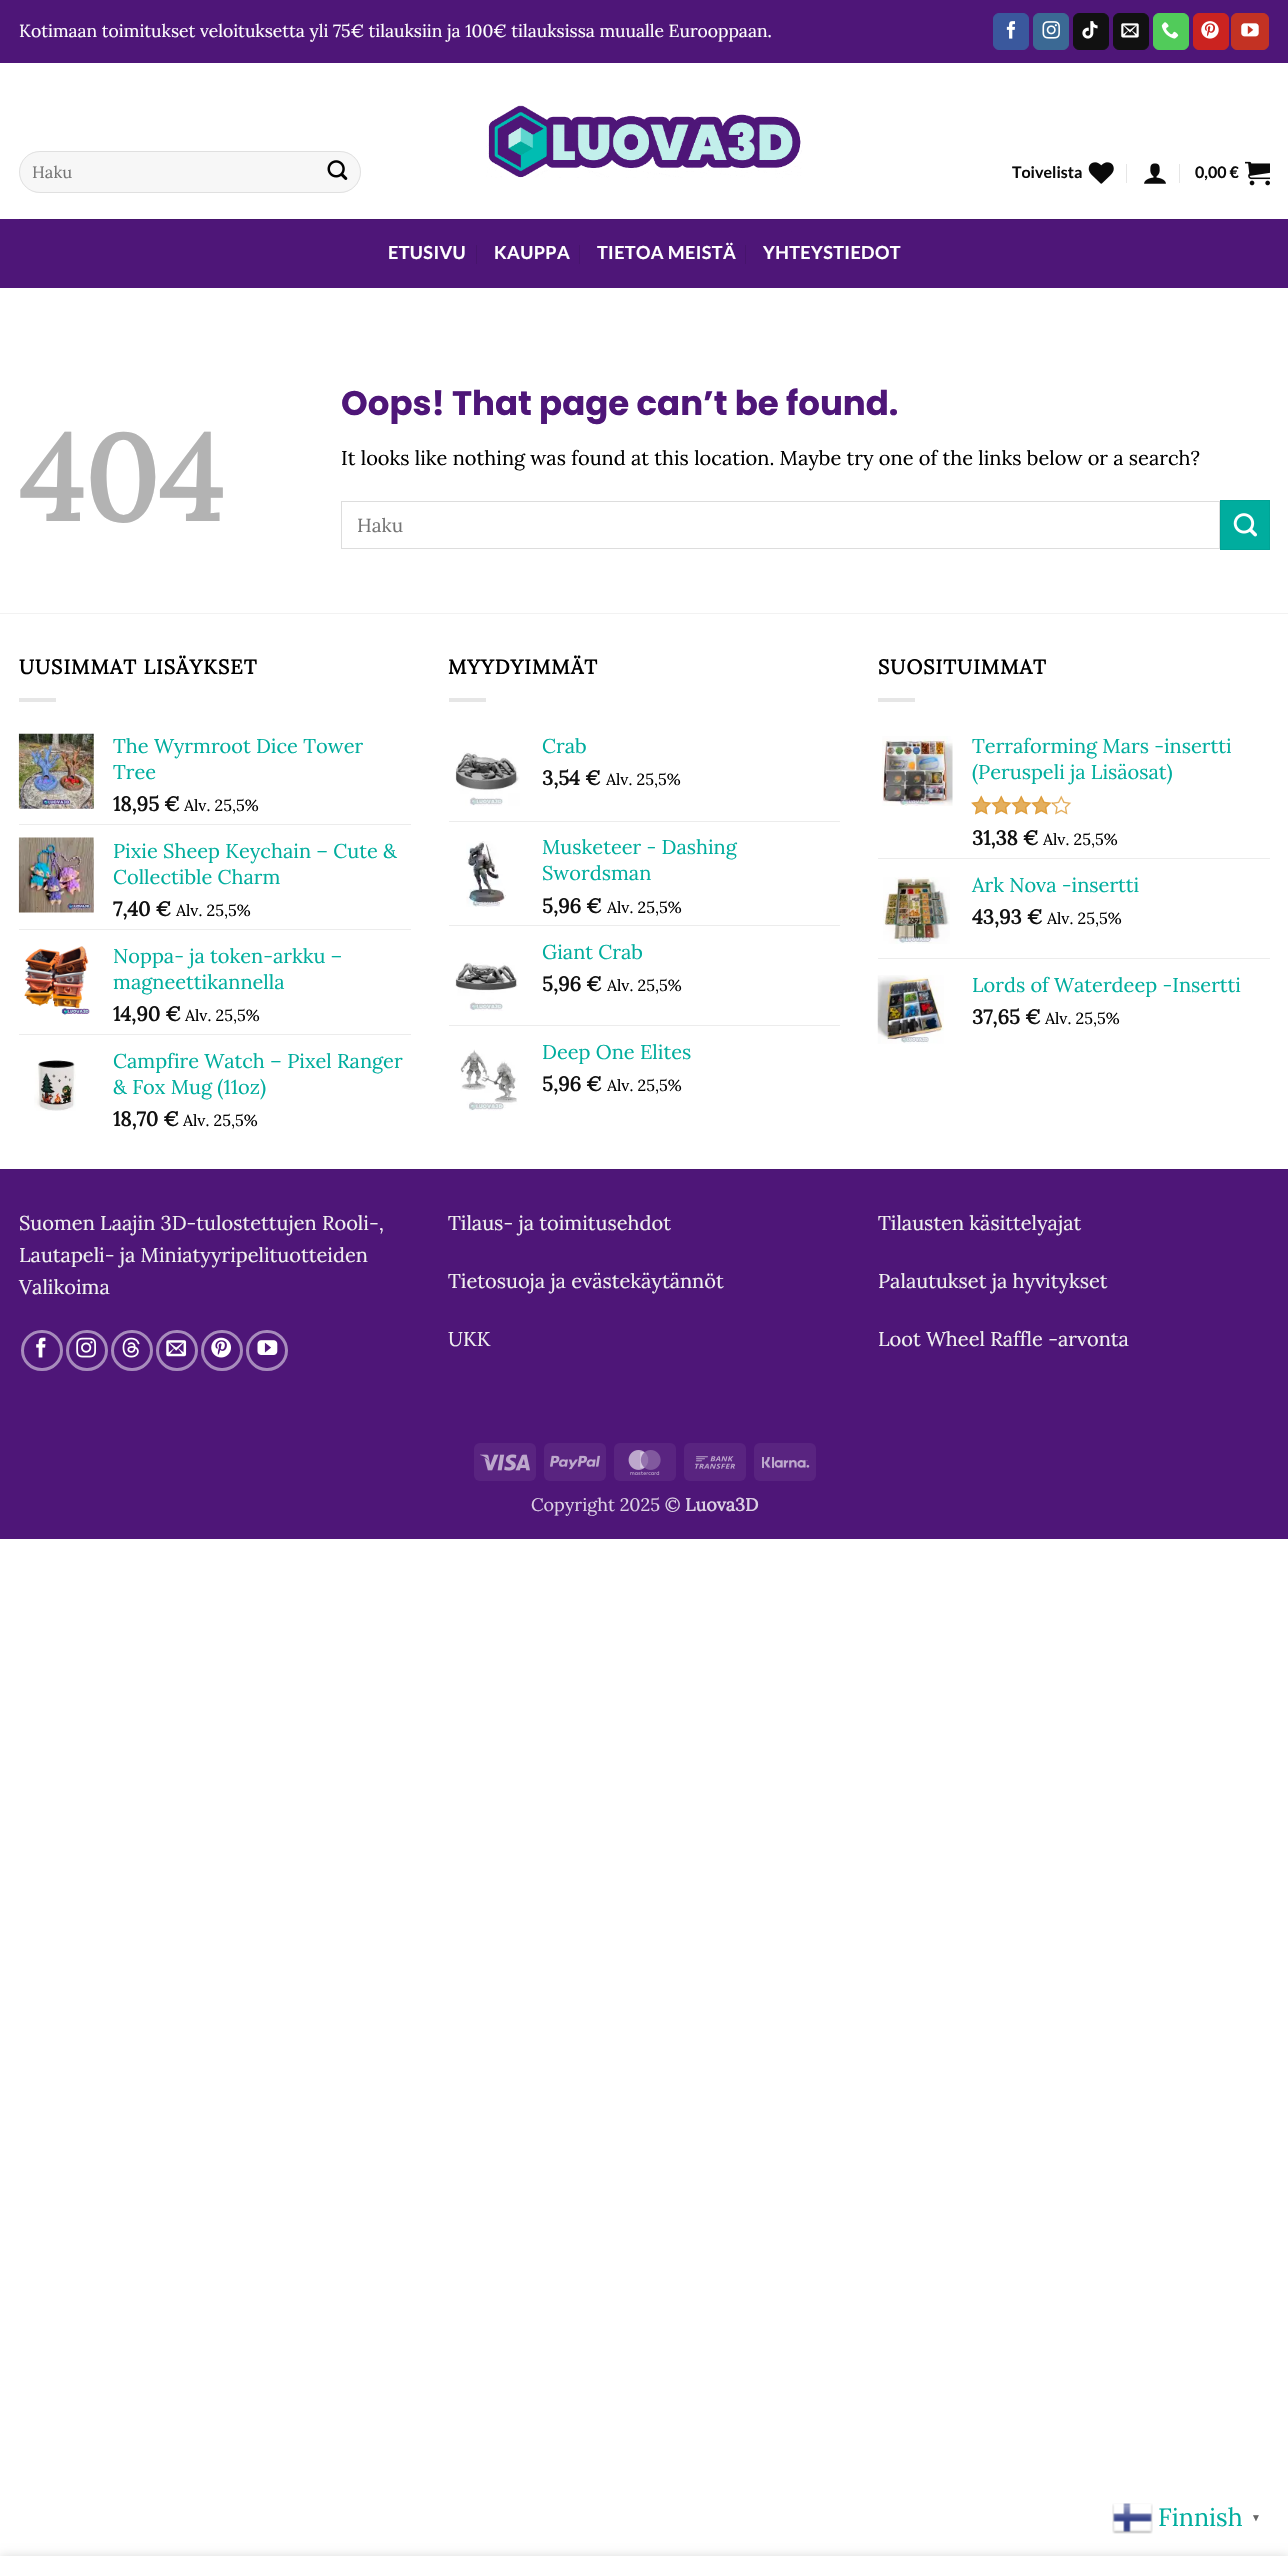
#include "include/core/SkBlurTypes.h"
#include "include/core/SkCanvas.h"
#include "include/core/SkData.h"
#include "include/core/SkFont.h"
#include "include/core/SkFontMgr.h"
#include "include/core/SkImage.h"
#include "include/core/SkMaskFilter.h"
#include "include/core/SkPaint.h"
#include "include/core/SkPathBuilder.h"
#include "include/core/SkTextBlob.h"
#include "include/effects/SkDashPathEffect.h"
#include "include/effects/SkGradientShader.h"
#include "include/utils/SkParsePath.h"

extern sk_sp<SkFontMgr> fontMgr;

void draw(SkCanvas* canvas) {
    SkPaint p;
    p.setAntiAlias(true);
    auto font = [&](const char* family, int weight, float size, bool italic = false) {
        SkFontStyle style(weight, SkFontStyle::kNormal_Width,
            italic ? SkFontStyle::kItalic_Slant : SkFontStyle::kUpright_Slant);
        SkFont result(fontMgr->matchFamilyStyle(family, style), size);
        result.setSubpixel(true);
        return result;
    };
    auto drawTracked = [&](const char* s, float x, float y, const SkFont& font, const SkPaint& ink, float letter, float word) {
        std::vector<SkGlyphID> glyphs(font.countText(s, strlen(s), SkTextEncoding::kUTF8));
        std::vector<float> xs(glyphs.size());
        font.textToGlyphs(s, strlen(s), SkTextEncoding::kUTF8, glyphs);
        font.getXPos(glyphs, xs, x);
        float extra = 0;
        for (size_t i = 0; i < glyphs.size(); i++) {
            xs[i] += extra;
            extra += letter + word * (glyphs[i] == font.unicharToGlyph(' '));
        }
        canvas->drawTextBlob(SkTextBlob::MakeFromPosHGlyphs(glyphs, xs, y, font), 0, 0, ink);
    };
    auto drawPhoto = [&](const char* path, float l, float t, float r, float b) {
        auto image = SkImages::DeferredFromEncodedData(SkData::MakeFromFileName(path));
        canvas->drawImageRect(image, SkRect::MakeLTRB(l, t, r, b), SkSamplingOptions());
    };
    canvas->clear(0xFFFFFFFF);
    p.setColor(0xFF4E1678);
    canvas->drawRect(SkRect::MakeLTRB(0, 0, 1288, 63), p);
    auto font1 = font("Lora", 400, 17.5f);
    p.setColor(0xFFFFFFFF);
    canvas->drawString("Kotimaan toimitukset veloituksetta yli 75€ tilauksiin ja 100€ tilauksissa muualle Eurooppaan.", 19, 37, font1, p);
    p.setColor(0xFF3A589D);
    canvas->drawRoundRect(SkRect::MakeLTRB(993.5f, 13.5f, 1028.5f, 49.5f), 5.5f, 5.5f, p);
    p.setStyle(SkPaint::kStroke_Style);
    p.setStrokeWidth(1);
    canvas->drawRoundRect(SkRect::MakeLTRB(993.5f, 13.5f, 1028.5f, 49.5f), 5.5f, 5.5f, p);
    drawPhoto("media/1.png", 1006, 21, 1015, 39);
    p.setStyle(SkPaint::kFill_Style);
    p.setColor(0xFF3B6994);
    canvas->drawRoundRect(SkRect::MakeLTRB(1033.5f, 13.5f, 1068.5f, 49.5f), 5.5f, 5.5f, p);
    p.setStyle(SkPaint::kStroke_Style);
    canvas->drawRoundRect(SkRect::MakeLTRB(1033.5f, 13.5f, 1068.5f, 49.5f), 5.5f, 5.5f, p);
    drawPhoto("media/2.png", 1042, 21, 1060, 39);
    p.setStyle(SkPaint::kFill_Style);
    p.setColor(0xFF111111);
    canvas->drawRoundRect(SkRect::MakeLTRB(1073.5f, 13.5f, 1108.5f, 49.5f), 5.5f, 5.5f, p);
    p.setStyle(SkPaint::kStroke_Style);
    canvas->drawRoundRect(SkRect::MakeLTRB(1073.5f, 13.5f, 1108.5f, 49.5f), 5.5f, 5.5f, p);
    drawPhoto("media/3.png", 1082, 21, 1098, 39);
    p.setStyle(SkPaint::kFill_Style);
    canvas->drawRoundRect(SkRect::MakeLTRB(1113.5f, 13.5f, 1148.5f, 49.5f), 5.5f, 5.5f, p);
    p.setStyle(SkPaint::kStroke_Style);
    canvas->drawRoundRect(SkRect::MakeLTRB(1113.5f, 13.5f, 1148.5f, 49.5f), 5.5f, 5.5f, p);
    drawPhoto("media/4.png", 1121, 23, 1139, 38);
    p.setStyle(SkPaint::kFill_Style);
    p.setColor(0xFF51CB5A);
    canvas->drawRoundRect(SkRect::MakeLTRB(1153.5f, 13.5f, 1188.5f, 49.5f), 5.5f, 5.5f, p);
    p.setStyle(SkPaint::kStroke_Style);
    canvas->drawRoundRect(SkRect::MakeLTRB(1153.5f, 13.5f, 1188.5f, 49.5f), 5.5f, 5.5f, p);
    drawPhoto("media/5.png", 1161, 22, 1179, 39);
    p.setStyle(SkPaint::kFill_Style);
    p.setColor(0xFFCB2320);
    canvas->drawRoundRect(SkRect::MakeLTRB(1193.5f, 13.5f, 1228.5f, 49.5f), 5.5f, 5.5f, p);
    p.setStyle(SkPaint::kStroke_Style);
    canvas->drawRoundRect(SkRect::MakeLTRB(1193.5f, 13.5f, 1228.5f, 49.5f), 5.5f, 5.5f, p);
    drawPhoto("media/6.png", 1201, 21, 1219, 39);
    p.setStyle(SkPaint::kFill_Style);
    p.setColor(0xFFC33223);
    canvas->drawRoundRect(SkRect::MakeLTRB(1231.5f, 13.5f, 1268.5f, 49.5f), 5.5f, 5.5f, p);
    p.setStyle(SkPaint::kStroke_Style);
    canvas->drawRoundRect(SkRect::MakeLTRB(1231.5f, 13.5f, 1268.5f, 49.5f), 5.5f, 5.5f, p);
    drawPhoto("media/7.png", 1241, 23, 1259, 37);
    p.setStyle(SkPaint::kFill_Style);
    p.setColor(0xFFF7F7F7);
    canvas->drawRoundRect(SkRect::MakeLTRB(19, 151, 361, 193), 21, 21, p);
    p.setStyle(SkPaint::kStroke_Style);
    p.setColor(0x17000000);
    canvas->drawRoundRect(SkRect::MakeLTRB(19.5f, 151.5f, 360.5f, 192.5f), 20.5f, 20.5f, p);
    auto font2 = font("Lora", 400, 16.5f);
    p.setStyle(SkPaint::kFill_Style);
    p.setColor(0xFF757575);
    canvas->drawString("Haku", 32, 178, font2, p);
    drawPhoto("media/8.png", 327, 160, 348, 180);
    drawPhoto("media/9.png", 486, 105, 802, 178);
    auto font3 = font("Lato", 700, 16);
    p.setColor(0xFF0A0A0A);
    canvas->drawString("Toivelista", 1012, 178, font3, p);
    drawPhoto("media/10.png", 1088, 162, 1114, 184);
    p.setColor(0xFFE6E6E6);
    canvas->drawRect(SkRect::MakeLTRB(1126, 164, 1127, 183), p);
    drawPhoto("media/11.png", 1144, 163, 1166, 184);
    canvas->drawRect(SkRect::MakeLTRB(1179, 164, 1180, 183), p);
    p.setColor(0xFF0A0A0A);
    canvas->drawString("0,00 €", 1195, 178, font3, p);
    drawPhoto("media/12.png", 1245, 161, 1270, 186);
    p.setColor(0xFF4E1678);
    canvas->drawRect(SkRect::MakeLTRB(0, 219, 1288, 288), p);
    p.setColor(0xFF46146C);
    canvas->drawRect(SkRect::MakeLTRB(19, 219, 1270, 220), p);
    auto font4 = font("Lato", 700, 18);
    p.setColor(0xFFFFFFFF);
    drawTracked("ETUSIVU", 388, 259, font4, p, 0.4f, 0);
    p.setColor(0xFF46146C);
    canvas->drawRect(SkRect::MakeLTRB(476, 245, 477, 264), p);
    p.setColor(0xFFFFFFFF);
    drawTracked("KAUPPA", 494, 259, font4, p, 0.4f, 0);
    p.setColor(0xFF46146C);
    canvas->drawRect(SkRect::MakeLTRB(579, 245, 580, 264), p);
    p.setColor(0xFFFFFFFF);
    drawTracked("TIETOA MEISTÄ", 597, 259, font4, p, 0.4f, 0);
    p.setColor(0xFF46146C);
    canvas->drawRect(SkRect::MakeLTRB(745, 245, 746, 264), p);
    p.setColor(0xFFFFFFFF);
    drawTracked("YHTEYSTIEDOT", 763, 259, font4, p, 0.4f, 0);
    auto font5 = font("Lora", 700, 120);
    p.setColor(0xFFB3B3B3);
    canvas->drawString("404", 19, 521, font5, p);
    auto font6 = font("Poppins", 700, 34);
    p.setColor(0xFF4E1678);
    canvas->drawString("Oops! That page can’t be found.", 341, 415, font6, p);
    auto font7 = font("Lora", 400, 20);
    p.setColor(0xFF000000);
    canvas->drawString("It looks like nothing was found at this location. Maybe try one of the links below or a search?", 341, 465, font7, p);
    p.setStyle(SkPaint::kStroke_Style);
    p.setColor(0xFFDDDDDD);
    canvas->drawRect(SkRect::MakeLTRB(341.5f, 501.5f, 1219.5f, 548.5f), p);
    auto font8 = font("Lora", 400, 19);
    p.setStyle(SkPaint::kFill_Style);
    p.setColor(0xFF757575);
    canvas->drawString("Haku", 357, 532, font8, p);
    p.setColor(0xFF00AD9E);
    canvas->drawRect(SkRect::MakeLTRB(1220.5f, 500.5f, 1269.5f, 549.5f), p);
    p.setStyle(SkPaint::kStroke_Style);
    p.setColor(0xFF00A496);
    canvas->drawRect(SkRect::MakeLTRB(1220.5f, 500.5f, 1269.5f, 549.5f), p);
    drawPhoto("media/13.png", 1233, 513, 1257, 537);
    p.setStyle(SkPaint::kFill_Style);
    p.setColor(0xFFF2F2F2);
    canvas->drawRect(SkRect::MakeLTRB(0, 613, 1288, 614), p);
    auto font9 = font("Lora", 700, 20);
    p.setColor(0xFF000000);
    drawTracked("UUSIMMAT LISÄYKSET", 19, 674, font9, p, 1, 0);
    p.setColor(0xFFE6E6E6);
    canvas->drawRect(SkRect::MakeLTRB(19, 698, 56, 702), p);
    drawPhoto("media/14.png", 18, 733, 94, 809);
    p.setColor(0xFF00AD9E);
    canvas->drawString("The Wyrmroot Dice Tower", 113, 753, font7, p);
    canvas->drawString("Tree", 113, 779, font7, p);
    p.setColor(0xFF111111);
    canvas->drawString("18,95 €", 113, 811, font9, p);
    auto font10 = font("Lora", 400, 16);
    p.setColor(0xFF000000);
    canvas->drawString("Alv. 25,5%", 184, 811, font10, p);
    p.setColor(0xFFECECEC);
    canvas->drawRect(SkRect::MakeLTRB(19, 824, 411, 825), p);
    drawPhoto("media/15.png", 18, 837, 94, 913);
    p.setColor(0xFF00AD9E);
    canvas->drawString("Pixie Sheep Keychain – Cute &", 113, 858, font7, p);
    canvas->drawString("Collectible Charm", 113, 884, font7, p);
    p.setColor(0xFF111111);
    canvas->drawString("7,40 €", 113, 916, font9, p);
    p.setColor(0xFF000000);
    canvas->drawString("Alv. 25,5%", 176, 916, font10, p);
    p.setColor(0xFFECECEC);
    canvas->drawRect(SkRect::MakeLTRB(19, 929, 411, 930), p);
    drawPhoto("media/16.png", 24, 946, 90, 1015);
    p.setColor(0xFF00AD9E);
    canvas->drawString("Noppa- ja token-arkku –", 113, 963, font7, p);
    canvas->drawString("magneettikannella", 113, 989, font7, p);
    p.setColor(0xFF111111);
    canvas->drawString("14,90 €", 113, 1021, font9, p);
    p.setColor(0xFF000000);
    canvas->drawString("Alv. 25,5%", 185, 1021, font10, p);
    p.setColor(0xFFECECEC);
    canvas->drawRect(SkRect::MakeLTRB(19, 1034, 411, 1035), p);
    drawPhoto("media/17.png", 34, 1060, 76, 1111);
    p.setColor(0xFF00AD9E);
    canvas->drawString("Campfire Watch – Pixel Ranger", 113, 1068, font7, p);
    canvas->drawString("& Fox Mug (11oz)", 113, 1094, font7, p);
    p.setColor(0xFF111111);
    canvas->drawString("18,70 €", 113, 1126, font9, p);
    p.setColor(0xFF000000);
    canvas->drawString("Alv. 25,5%", 183, 1126, font10, p);
    drawTracked("MYYDYIMMÄT", 448, 674, font9, p, 1, 0);
    p.setColor(0xFFE6E6E6);
    canvas->drawRect(SkRect::MakeLTRB(449, 698, 486, 702), p);
    p.setColor(0xFF00AD9E);
    canvas->drawString("Crab", 542, 753, font7, p);
    drawPhoto("media/18.png", 455, 752, 520, 806);
    p.setColor(0xFF111111);
    canvas->drawString("3,54 €", 542, 785, font9, p);
    p.setColor(0xFF000000);
    canvas->drawString("Alv. 25,5%", 606, 785, font10, p);
    p.setColor(0xFFECECEC);
    canvas->drawRect(SkRect::MakeLTRB(449, 821, 840, 822), p);
    drawPhoto("media/19.png", 466, 841, 506, 907);
    p.setColor(0xFF00AD9E);
    canvas->drawString("Musketeer - Dashing", 542, 854, font7, p);
    canvas->drawString("Swordsman", 542, 880, font7, p);
    p.setColor(0xFF111111);
    canvas->drawString("5,96 €", 542, 913, font9, p);
    p.setColor(0xFF000000);
    canvas->drawString("Alv. 25,5%", 607, 913, font10, p);
    p.setColor(0xFFECECEC);
    canvas->drawRect(SkRect::MakeLTRB(449, 925, 840, 926), p);
    p.setColor(0xFF00AD9E);
    canvas->drawString("Giant Crab", 542, 959, font7, p);
    drawPhoto("media/20.png", 455, 962, 518, 1011);
    p.setColor(0xFF111111);
    canvas->drawString("5,96 €", 542, 991, font9, p);
    p.setColor(0xFF000000);
    canvas->drawString("Alv. 25,5%", 607, 991, font10, p);
    p.setColor(0xFFECECEC);
    canvas->drawRect(SkRect::MakeLTRB(449, 1025, 840, 1026), p);
    drawPhoto("media/21.png", 460, 1049, 518, 1111);
    p.setColor(0xFF00AD9E);
    canvas->drawString("Deep One Elites", 542, 1059, font7, p);
    p.setColor(0xFF111111);
    canvas->drawString("5,96 €", 542, 1091, font9, p);
    p.setColor(0xFF000000);
    canvas->drawString("Alv. 25,5%", 607, 1091, font10, p);
    drawTracked("SUOSITUIMMAT", 878, 674, font9, p, 1, 0);
    p.setColor(0xFFE6E6E6);
    canvas->drawRect(SkRect::MakeLTRB(878, 698, 915, 702), p);
    drawPhoto("media/22.png", 882, 736, 953, 806);
    p.setColor(0xFF00AD9E);
    canvas->drawString("Terraforming Mars -insertti", 972, 753, font7, p);
    canvas->drawString("(Peruspeli ja Lisäosat)", 972, 779, font7, p);
    drawPhoto("media/23.png", 971, 795, 1072, 815);
    drawPhoto("media/24.png", 971, 795, 1053, 815);
    p.setColor(0xFF111111);
    canvas->drawString("31,38 €", 972, 845, font9, p);
    p.setColor(0xFF000000);
    canvas->drawString("Alv. 25,5%", 1043, 845, font10, p);
    p.setColor(0xFFECECEC);
    canvas->drawRect(SkRect::MakeLTRB(878, 858, 1270, 859), p);
    drawPhoto("media/25.png", 883, 877, 950, 944);
    p.setColor(0xFF00AD9E);
    canvas->drawString("Ark Nova -insertti", 972, 892, font7, p);
    p.setColor(0xFF111111);
    canvas->drawString("43,93 €", 972, 924, font9, p);
    p.setColor(0xFF000000);
    canvas->drawString("Alv. 25,5%", 1047, 924, font10, p);
    p.setColor(0xFFECECEC);
    canvas->drawRect(SkRect::MakeLTRB(878, 958, 1270, 959), p);
    drawPhoto("media/26.png", 877, 975, 944, 1044);
    p.setColor(0xFF00AD9E);
    canvas->drawString("Lords of Waterdeep -Insertti", 972, 992, font7, p);
    p.setColor(0xFF111111);
    canvas->drawString("37,65 €", 972, 1024, font9, p);
    p.setColor(0xFF000000);
    canvas->drawString("Alv. 25,5%", 1045, 1024, font10, p);
    p.setColor(0xFF4E1678);
    canvas->drawRect(SkRect::MakeLTRB(0, 1170, 1288, 1539), p);
    p.setColor(0xFF4A1572);
    canvas->drawRect(SkRect::MakeLTRB(0, 1169, 1288, 1170), p);
    p.setColor(0xFFF1F1F1);
    {
        const struct { const char* s; float x, y; } items[] = {
            {"Suomen Laajin 3D-tulostettujen Rooli-,", 19, 1230},
            {"Lautapeli- ja Miniatyyripelituotteiden", 19, 1262},
            {"Valikoima", 19, 1294},
        };
        for (auto [s, x, y] : items) {
            canvas->drawString(s, x, y, font7, p);
        }
    }
    p.setStyle(SkPaint::kStroke_Style);
    p.setStrokeWidth(3);
    p.setColor(0xFFA78BBC);
    canvas->drawRoundRect(SkRect::MakeLTRB(22.5f, 1331.5f, 61.5f, 1369.5f), 19, 19, p);
    drawPhoto("media/27.png", 36, 1337, 46, 1358);
    canvas->drawRoundRect(SkRect::MakeLTRB(67.5f, 1331.5f, 106.5f, 1369.5f), 19, 19, p);
    drawPhoto("media/28.png", 76, 1337, 96, 1358);
    canvas->drawRoundRect(SkRect::MakeLTRB(112.5f, 1331.5f, 151.5f, 1369.5f), 19, 19, p);
    drawPhoto("media/29.png", 122, 1337, 140, 1358);
    canvas->drawRoundRect(SkRect::MakeLTRB(157.5f, 1331.5f, 196.5f, 1369.5f), 19, 19, p);
    drawPhoto("media/30.png", 166, 1340, 187, 1357);
    canvas->drawRoundRect(SkRect::MakeLTRB(202.5f, 1331.5f, 241.5f, 1369.5f), 19, 19, p);
    drawPhoto("media/31.png", 211, 1337, 231, 1358);
    canvas->drawRoundRect(SkRect::MakeLTRB(247.5f, 1331.5f, 286.5f, 1369.5f), 19, 19, p);
    drawPhoto("media/32.png", 257, 1340, 278, 1355);
    p.setStyle(SkPaint::kFill_Style);
    p.setColor(0xFFF1F1F1);
    {
        const struct { const char* s; float x, y; } items[] = {
            {"Tilaus- ja toimitusehdot", 448, 1230},
            {"Tietosuoja ja evästekäytännöt", 448, 1288},
            {"UKK", 448, 1346},
            {"Tilausten käsittelyajat", 878, 1230},
            {"Palautukset ja hyvitykset", 878, 1288},
            {"Loot Wheel Raffle -arvonta", 878, 1346},
        };
        for (auto [s, x, y] : items) {
            canvas->drawString(s, x, y, font7, p);
        }
    }
    p.setColor(0xFF592480);
    canvas->drawRoundRect(SkRect::MakeLTRB(474, 1443, 536, 1481), 6, 6, p);
    drawPhoto("media/33.png", 480, 1454, 530, 1471);
    canvas->drawRoundRect(SkRect::MakeLTRB(544, 1443, 606, 1481), 6, 6, p);
    drawPhoto("media/34.png", 550, 1455, 600, 1470);
    canvas->drawRoundRect(SkRect::MakeLTRB(614, 1443, 676, 1481), 6, 6, p);
    drawPhoto("media/35.png", 628, 1450, 661, 1475);
    canvas->drawRoundRect(SkRect::MakeLTRB(684, 1443, 746, 1481), 6, 6, p);
    drawPhoto("media/36.png", 695, 1456, 735, 1469);
    canvas->drawRoundRect(SkRect::MakeLTRB(754, 1443, 816, 1481), 6, 6, p);
    drawPhoto("media/37.png", 762, 1457, 810, 1468);
    auto font11 = font("Lora", 400, 18);
    p.setColor(0xFFDCD0E4);
    canvas->drawString("Copyright 2025 ©", 531, 1511, font11, p);
    auto font12 = font("Lora", 700, 18);
    canvas->drawString("Luova3D", 685, 1511, font12, p);
    drawPhoto("media/38.png", 1112, 2503, 1153, 2534);
    auto font13 = font("Lora", 400, 25);
    p.setColor(0xFF00AD9E);
    canvas->drawString("Finnish", 1158, 2526, font13, p);
    auto font14 = font("Liberation Sans", 700, 10);
    p.setColor(0xFF666666);
    canvas->drawString("▼", 1251, 2521, font14, p);
    p.setColor(0x24000000);
    p.setMaskFilter(SkMaskFilter::MakeBlur(kNormal_SkBlurStyle, 5.5f));
    canvas->drawRect(SkRect::MakeLTRB(0, 2556, 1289, 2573), p);
    p.setMaskFilter(nullptr);
}
